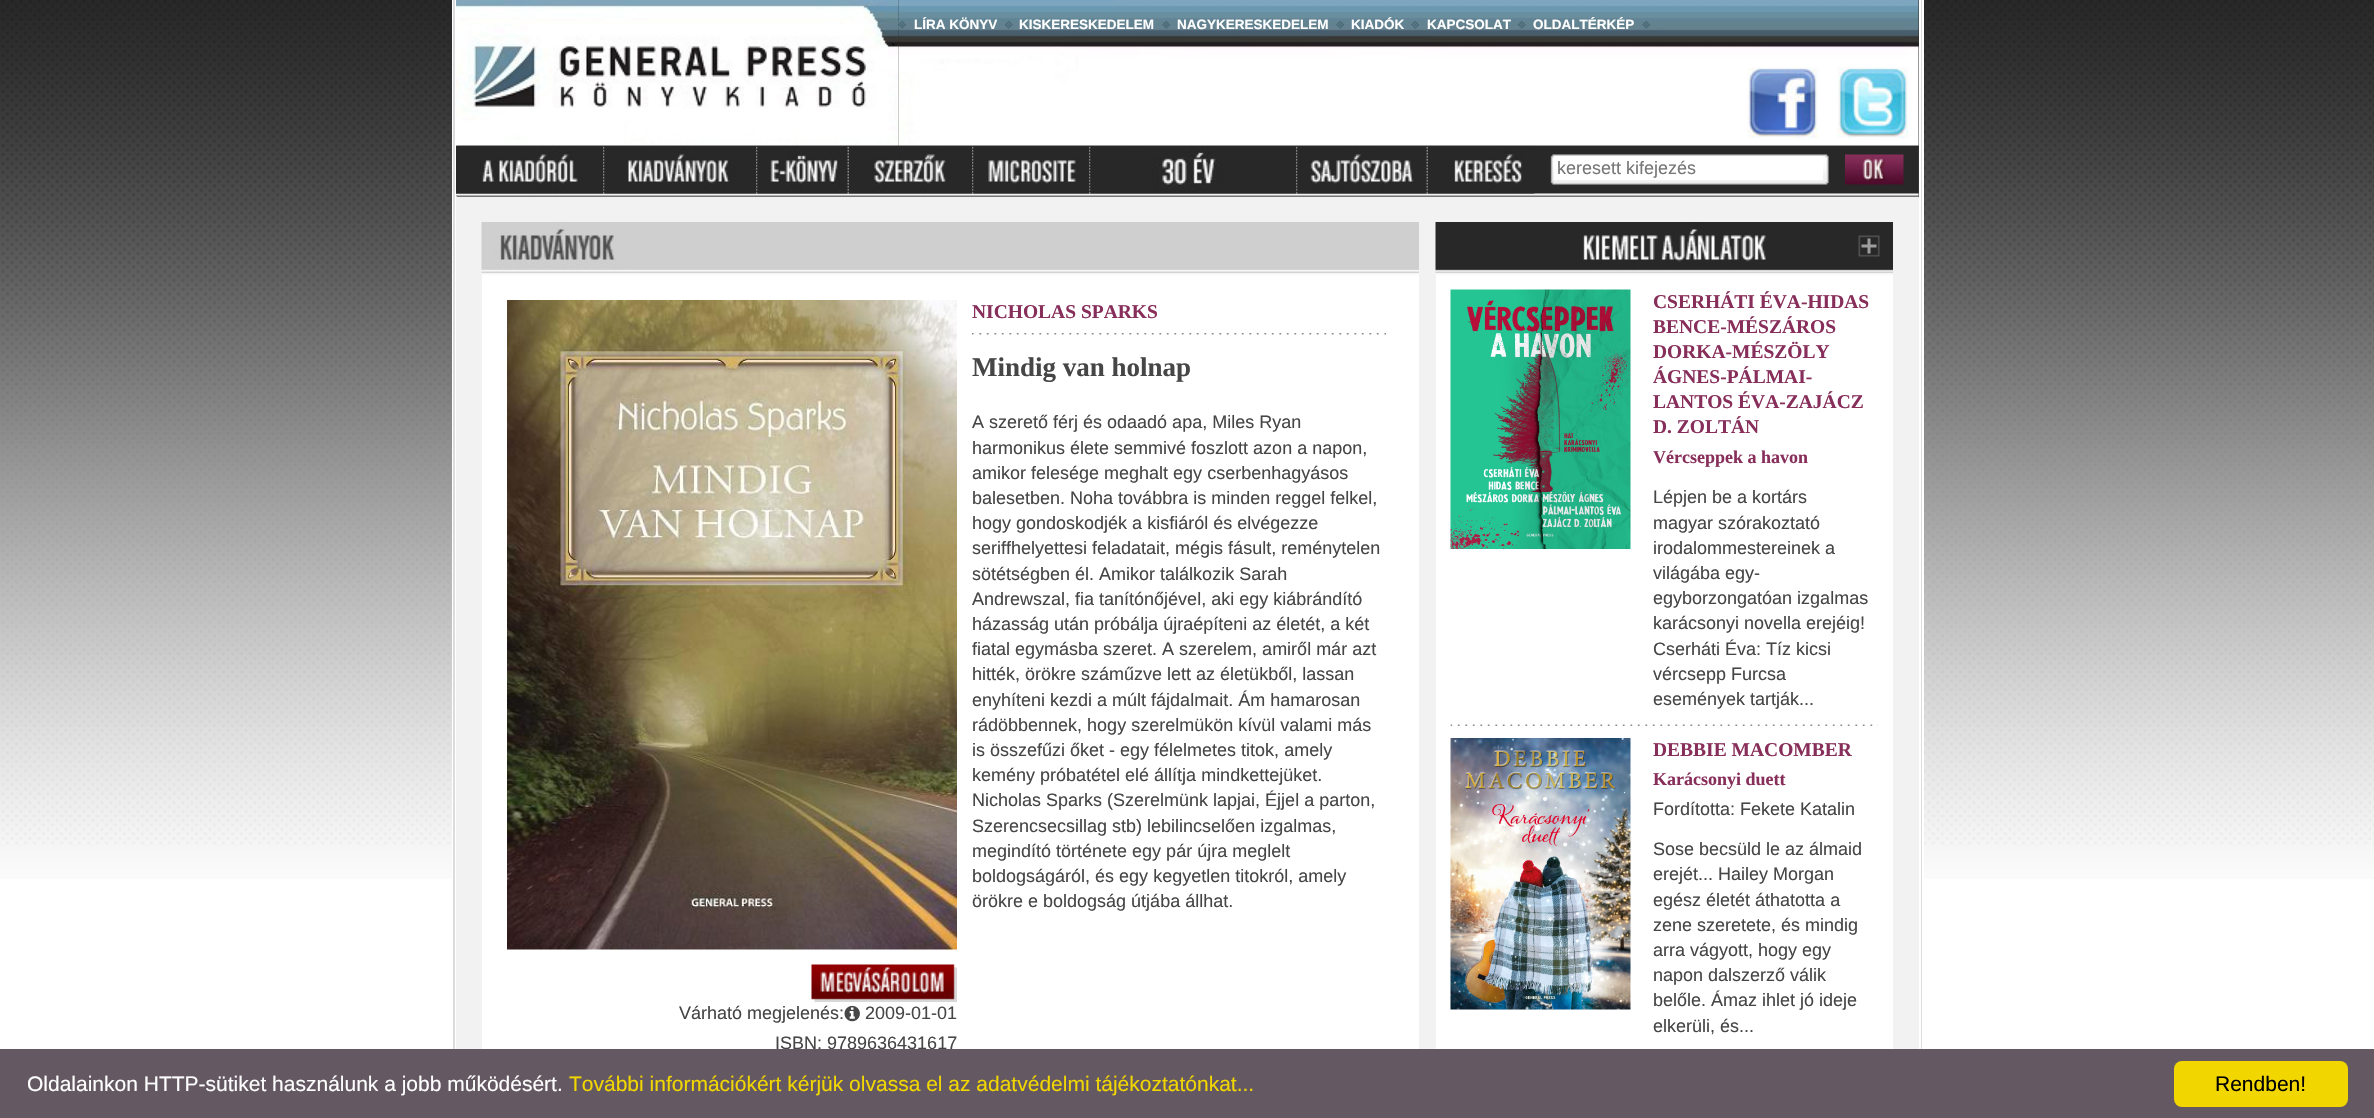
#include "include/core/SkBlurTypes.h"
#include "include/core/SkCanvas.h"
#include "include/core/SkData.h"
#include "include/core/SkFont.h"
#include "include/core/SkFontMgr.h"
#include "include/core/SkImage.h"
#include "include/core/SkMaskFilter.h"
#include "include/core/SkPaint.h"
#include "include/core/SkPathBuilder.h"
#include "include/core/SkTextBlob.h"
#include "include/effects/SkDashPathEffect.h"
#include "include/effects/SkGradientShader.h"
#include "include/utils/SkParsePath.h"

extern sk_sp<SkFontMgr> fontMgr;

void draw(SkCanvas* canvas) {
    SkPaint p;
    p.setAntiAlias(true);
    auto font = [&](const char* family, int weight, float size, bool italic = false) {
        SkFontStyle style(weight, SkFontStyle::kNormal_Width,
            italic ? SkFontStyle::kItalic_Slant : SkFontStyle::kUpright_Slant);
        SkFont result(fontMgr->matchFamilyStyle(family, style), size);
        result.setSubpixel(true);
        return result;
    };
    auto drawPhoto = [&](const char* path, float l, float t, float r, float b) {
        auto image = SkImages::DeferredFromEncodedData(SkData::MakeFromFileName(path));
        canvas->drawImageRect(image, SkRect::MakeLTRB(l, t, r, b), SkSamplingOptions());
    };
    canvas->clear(0xFFFFFFFF);
    drawPhoto("media/1.png", 0, 0, 2374, 879);
    {
        const struct { float l, t, r, b; SkColor color; } items[] = {
            {1922, 0, 1924, 879, 0xFFFFFFFF},
            {452, 0, 453, 879, 0xFFFFFFFF},
            {1921, 0, 1922, 1049, 0xFFDCDCDC},
            {453, 0, 455, 1049, 0xFFDCDCDC},
            {1919, 0, 1921, 879, 0xFFFFFFFF},
            {455, 0, 457, 879, 0xFFFFFFFF},
        };
        for (auto [l, t, r, b, color] : items) {
            p.setColor(color);
            canvas->drawRect(SkRect::MakeLTRB(l, t, r, b), p);
        }
    }
    drawPhoto("media/13.png", 456, 145, 1919, 197);
    drawPhoto("media/14.png", 456, 145, 603, 194);
    drawPhoto("media/15.png", 603, 145, 605, 193);
    drawPhoto("media/16.png", 604, 145, 756, 194);
    drawPhoto("media/15.png", 756, 145, 758, 193);
    drawPhoto("media/17.png", 757, 145, 848, 194);
    drawPhoto("media/18.png", 849, 145, 972, 194);
    drawPhoto("media/2.png", 456, 0, 899, 146);
    drawPhoto("media/15.png", 972, 145, 974, 193);
    drawPhoto("media/19.png", 973, 145, 1089, 194);
    drawPhoto("media/15.png", 1089, 145, 1091, 193);
    drawPhoto("media/20.png", 1090, 145, 1296, 194);
    drawPhoto("media/15.png", 1296, 145, 1298, 193);
    drawPhoto("media/21.png", 1297, 145, 1427, 194);
    drawPhoto("media/23.png", 1426, 145, 1428, 194);
    drawPhoto("media/24.png", 1428, 145, 1535, 194);
    drawPhoto("media/3.png", 898, 0, 1919, 146);
    drawPhoto("media/4.png", 898, 21, 906, 29);
    auto font1 = font("Liberation Sans", 700, 13.5f);
    canvas->drawString("LÍRA KÖNYV", 914, 29, font1, p);
    drawPhoto("media/5.png", 1005, 21, 1013, 29);
    canvas->drawString("KISKERESKEDELEM", 1019, 29, font1, p);
    drawPhoto("media/6.png", 1162, 21, 1170, 29);
    canvas->drawString("NAGYKERESKEDELEM", 1177, 29, font1, p);
    drawPhoto("media/7.png", 1336, 21, 1344, 29);
    canvas->drawString("KIADÓK", 1351, 29, font1, p);
    drawPhoto("media/8.png", 1411, 21, 1419, 29);
    canvas->drawString("KAPCSOLAT", 1427, 29, font1, p);
    drawPhoto("media/9.png", 1518, 21, 1526, 29);
    canvas->drawString("OLDALTÉRKÉP", 1533, 29, font1, p);
    drawPhoto("media/10.png", 1642, 21, 1650, 29);
    drawPhoto("media/11.png", 1747, 67, 1818, 138);
    drawPhoto("media/12.png", 1837, 67, 1908, 138);
    drawPhoto("media/22.png", 847, 146, 849, 194);
    drawPhoto("media/25.png", 1550, 154, 1829, 185);
    canvas->drawRect(SkRect::MakeLTRB(1554, 156, 1823, 180), p);
    auto font2 = font("Liberation Sans", 400, 18);
    p.setColor(0xFF777777);
    canvas->drawString("keresett kifejezés", 1557, 174, font2, p);
    drawPhoto("media/26.png", 1845, 154, 1904, 185);
    p.setColor(0xFFF2F2F2);
    canvas->drawRect(SkRect::MakeLTRB(456, 197, 1919, 1049), p);
    drawPhoto("media/27.png", 481, 222, 1419, 275);
    p.setColor(0xFFFFFFFF);
    canvas->drawRect(SkRect::MakeLTRB(482, 275, 1419, 1049), p);
    auto font3 = font("Liberation Serif", 700, 19.5f);
    p.setColor(0xFF872E5A);
    canvas->drawString("NICHOLAS SPARKS", 972, 318, font3, p);
    drawPhoto("media/28.png", 972, 333, 1386, 335);
    auto font4 = font("Liberation Serif", 700, 27);
    p.setColor(0xFF464646);
    canvas->drawString("Mindig van holnap", 972, 376, font4, p);
    {
        const struct { const char* s; float x, y; } items[] = {
            {"A szerető férj és odaadó apa, Miles Ryan", 972, 428},
            {"harmonikus élete semmivé foszlott azon a napon,", 972, 454},
            {"amikor felesége meghalt egy cserbenhagyásos", 972, 479},
            {"balesetben. Noha továbbra is minden reggel felkel,", 972, 504},
            {"hogy gondoskodjék a kisfiáról és elvégezze", 972, 529},
            {"seriffhelyettesi feladatait, mégis fásult, reménytelen", 972, 554},
            {"sötétségben él. Amikor találkozik Sarah", 972, 580},
            {"Andrewszal, fia tanítónőjével, aki egy kiábrándító", 972, 605},
            {"házasság után próbálja újraépíteni az életét, a két", 972, 630},
            {"fiatal egymásba szeret. A szerelem, amiről már azt", 972, 655},
            {"hitték, örökre száműzve lett az életükből, lassan", 972, 680},
            {"enyhíteni kezdi a múlt fájdalmait. Ám hamarosan", 972, 706},
            {"rádöbbennek, hogy szerelmükön kívül valami más", 972, 731},
            {"is összefűzi őket - egy félelmetes titok, amely", 972, 756},
            {"kemény próbatétel elé állítja mindkettejüket.", 972, 781},
            {"Nicholas Sparks (Szerelmünk lapjai, Éjjel a parton,", 972, 806},
            {"Szerencsecsillag stb) lebilincselően izgalmas,", 972, 832},
            {"megindító története egy pár újra meglelt", 972, 857},
            {"boldogságáról, és egy kegyetlen titokról, amely", 972, 882},
            {"örökre e boldogság útjába állhat.", 972, 907},
        };
        for (auto [s, x, y] : items) {
            canvas->drawString(s, x, y, font2, p);
        }
    }
    drawPhoto("media/29.png", 507, 300, 957, 950);
    drawPhoto("media/30.png", 811, 964, 957, 1002);
    canvas->drawString("Várható megjelenés:", 679, 1019, font2, p);
    drawPhoto("media/31.png", 844, 1005, 860, 1022);
    canvas->drawString("2009-01-01", 865, 1019, font2, p);
    canvas->drawString("ISBN: 9789636431617", 775, 1049, font2, p);
    drawPhoto("media/32.png", 1435, 222, 1893, 275);
    p.setColor(0xFFFFFFFF);
    canvas->drawRect(SkRect::MakeLTRB(1436, 275, 1893, 1049), p);
    drawPhoto("media/33.png", 1450, 289, 1631, 549);
    p.setColor(0xFF872E5A);
    {
        const struct { const char* s; float x, y; } items[] = {
            {"CSERHÁTI ÉVA-HIDAS", 1653, 308},
            {"BENCE-MÉSZÁROS", 1653, 333},
            {"DORKA-MÉSZÖLY", 1653, 358},
            {"ÁGNES-PÁLMAI-", 1653, 383},
            {"LANTOS ÉVA-ZAJÁCZ", 1653, 408},
            {"D. ZOLTÁN", 1653, 433},
        };
        for (auto [s, x, y] : items) {
            canvas->drawString(s, x, y, font3, p);
        }
    }
    auto font5 = font("Liberation Serif", 700, 18);
    canvas->drawString("Vércseppek a havon", 1653, 463, font5, p);
    p.setColor(0xFF464646);
    {
        const struct { const char* s; float x, y; } items[] = {
            {"Lépjen be a kortárs", 1653, 503},
            {"magyar szórakoztató", 1653, 529},
            {"irodalommestereinek a", 1653, 554},
            {"világába egy-", 1653, 579},
            {"egyborzongatóan izgalmas", 1653, 604},
            {"karácsonyi novella erejéig!", 1653, 629},
            {"Cserháti Éva: Tíz kicsi", 1653, 655},
            {"vércsepp Furcsa", 1653, 680},
            {"események tartják...", 1653, 705},
        };
        for (auto [s, x, y] : items) {
            canvas->drawString(s, x, y, font2, p);
        }
    }
    drawPhoto("media/34.png", 1450, 724, 1878, 726);
    drawPhoto("media/35.png", 1450, 738, 1631, 1010);
    p.setColor(0xFF872E5A);
    canvas->drawString("DEBBIE MACOMBER", 1653, 756, font3, p);
    canvas->drawString("Karácsonyi duett", 1653, 785, font5, p);
    p.setColor(0xFF464646);
    {
        const struct { const char* s; float x, y; } items[] = {
            {"Fordította: Fekete Katalin", 1653, 815},
            {"Sose becsüld le az álmaid", 1653, 855},
            {"erejét... Hailey Morgan", 1653, 880},
            {"egész életét áthatotta a", 1653, 906},
            {"zene szeretete, és mindig", 1653, 931},
            {"arra vágyott, hogy egy", 1653, 956},
            {"napon dalszerző válik", 1653, 981},
            {"belőle. Ámaz ihlet jó ideje", 1653, 1006},
            {"elkerüli, és...", 1653, 1032},
        };
        for (auto [s, x, y] : items) {
            canvas->drawString(s, x, y, font2, p);
        }
    }
    p.setColor(0xFF645862);
    canvas->drawRect(SkRect::MakeLTRB(0, 1049, 2374, 1118), p);
    auto font6 = font("Liberation Sans", 400, 21);
    p.setColor(0xFFFFFFFF);
    canvas->drawString("Oldalainkon HTTP-sütiket használunk a jobb működésért.", 27, 1091, font6, p);
    p.setColor(0xFFF1D600);
    canvas->drawString("További információkért kérjük olvassa el az adatvédelmi tájékoztatónkat...", 569, 1091, font6, p);
    canvas->drawRoundRect(SkRect::MakeLTRB(2174, 1061, 2348, 1107), 8, 8, p);
    p.setColor(0xFF000000);
    canvas->drawString("Rendben!", 2215, 1091, font6, p);
}
